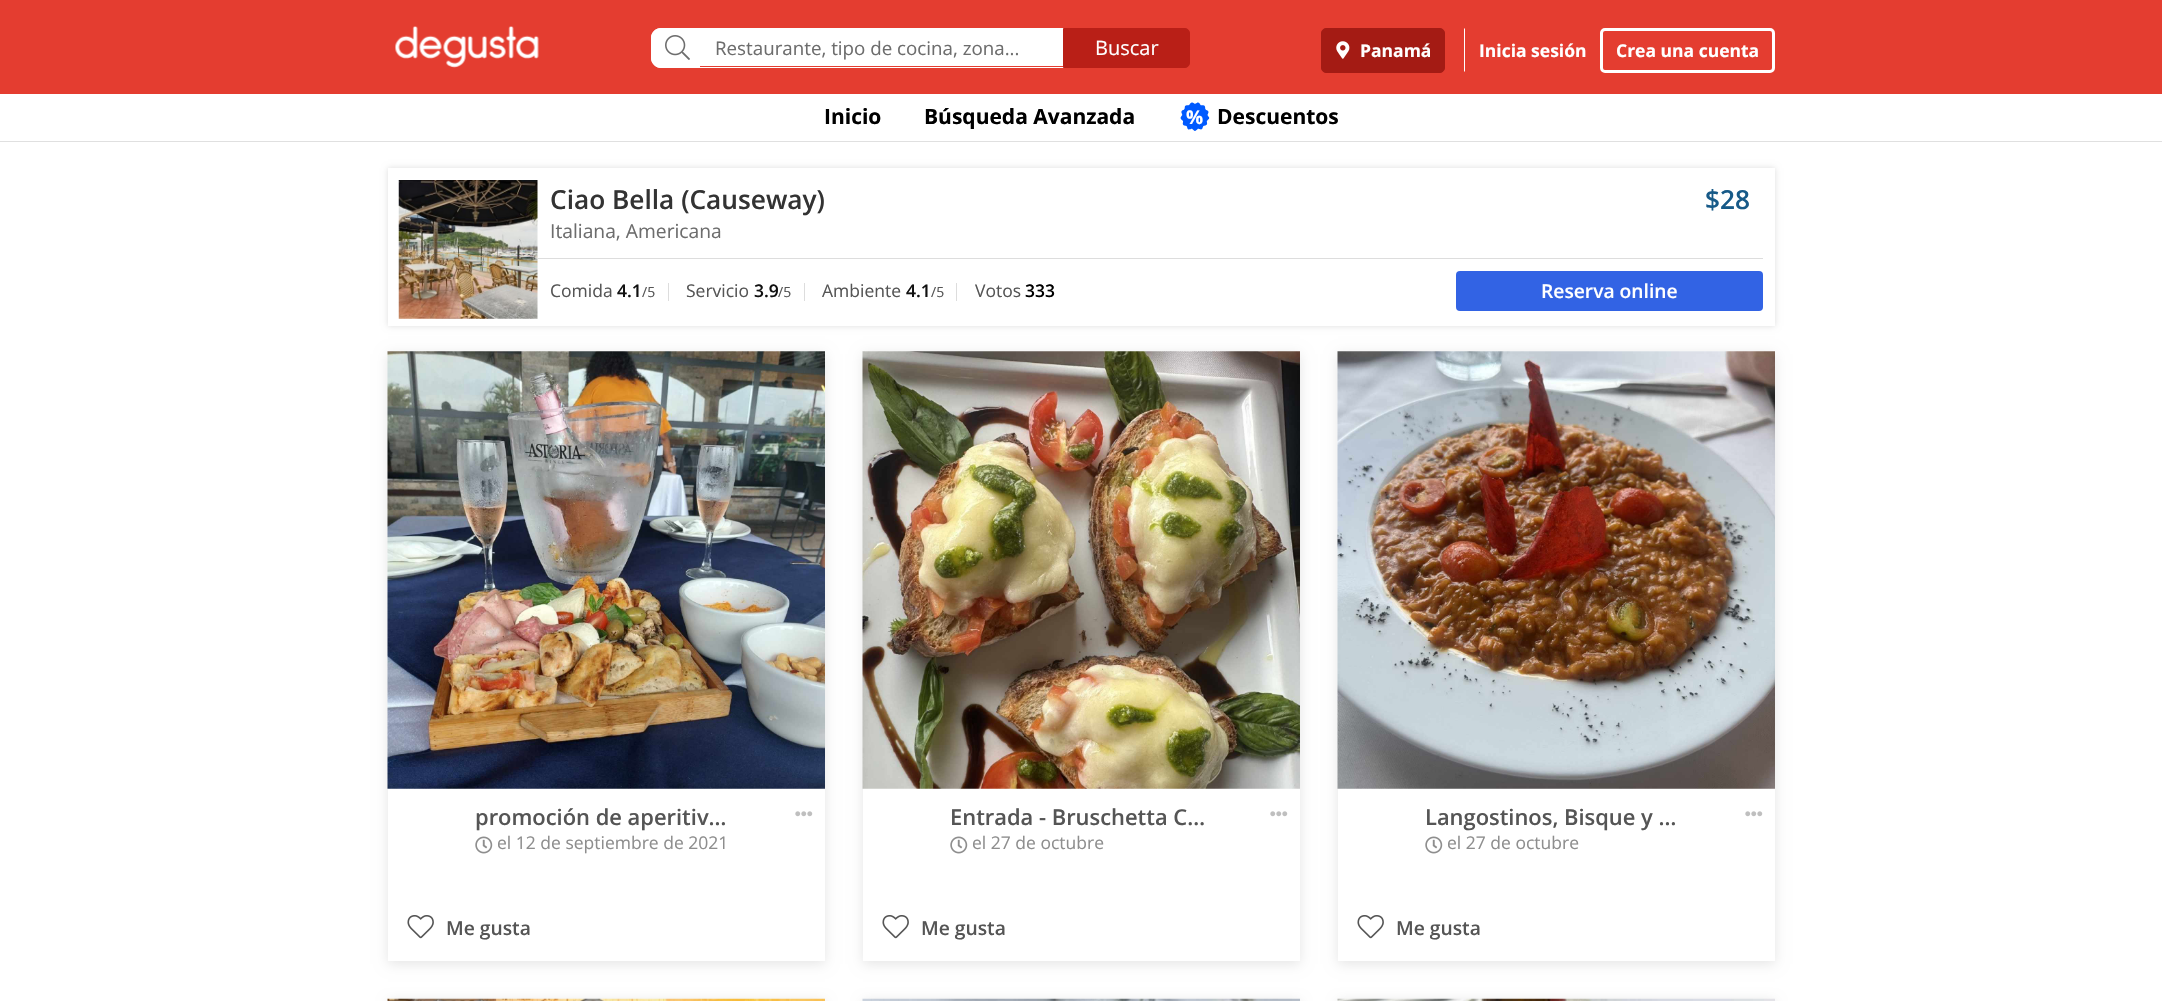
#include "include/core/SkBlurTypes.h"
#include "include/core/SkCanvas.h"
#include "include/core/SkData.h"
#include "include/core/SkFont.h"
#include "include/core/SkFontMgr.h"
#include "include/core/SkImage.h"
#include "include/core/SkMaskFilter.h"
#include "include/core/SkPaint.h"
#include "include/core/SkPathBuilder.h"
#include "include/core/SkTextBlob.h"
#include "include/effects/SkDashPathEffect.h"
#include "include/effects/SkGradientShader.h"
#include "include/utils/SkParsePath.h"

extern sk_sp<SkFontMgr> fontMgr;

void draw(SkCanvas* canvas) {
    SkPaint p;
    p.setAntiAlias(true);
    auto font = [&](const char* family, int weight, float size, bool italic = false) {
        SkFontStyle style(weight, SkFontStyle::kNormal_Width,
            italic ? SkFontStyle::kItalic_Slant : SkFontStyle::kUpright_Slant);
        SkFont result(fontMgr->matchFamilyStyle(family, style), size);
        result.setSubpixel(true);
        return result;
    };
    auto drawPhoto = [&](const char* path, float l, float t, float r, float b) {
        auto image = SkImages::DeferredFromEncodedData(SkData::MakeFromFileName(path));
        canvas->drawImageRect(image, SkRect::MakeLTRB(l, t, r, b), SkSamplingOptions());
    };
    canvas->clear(0xFFFFFFFF);
    p.setColor(0xFFE43D30);
    canvas->drawRect(SkRect::MakeLTRB(0, 0, 2162, 94), p);
    drawPhoto("media/1.png", 395, 26, 539, 68);
    p.setColor(0xFFFFFFFF);
    canvas->drawPath(SkPathBuilder().moveTo(661, 28).lineTo(699, 28).lineTo(699, 68).lineTo(661, 68).cubicTo(655.5f, 68, 651, 63.5f, 651, 58).lineTo(651, 38).cubicTo(651, 32.5f, 655.5f, 28, 661, 28).close().detach(), p);
    canvas->drawPath(SkPathBuilder(SkPathFillType::kEvenOdd).moveTo(661, 28).lineTo(699, 28).lineTo(699, 68).lineTo(661, 68).cubicTo(656, 68, 651, 63, 651, 58).lineTo(651, 38).cubicTo(651, 32, 656, 28, 661, 28).close().moveTo(661, 29).lineTo(699, 29).lineTo(699, 66).lineTo(661, 66).cubicTo(656, 66, 652, 62, 652, 58).lineTo(652, 38).cubicTo(652, 33, 656, 29, 661, 29).close().detach(), p);
    drawPhoto("media/2.png", 665, 35, 690, 60);
    canvas->drawRect(SkRect::MakeLTRB(700, 29, 1063, 66), p);
    p.setStyle(SkPaint::kStroke_Style);
    p.setStrokeWidth(1);
    canvas->drawRect(SkRect::MakeLTRB(699.5f, 28.5f, 1063.5f, 67.5f), p);
    auto font1 = font("Open Sans", 400, 18.75f);
    p.setStyle(SkPaint::kFill_Style);
    p.setColor(0xFF6D6D6D);
    canvas->drawString("Restaurante, tipo de cocina, zona...", 715, 55, font1, p);
    p.setColor(0xFFB91F17);
    canvas->drawPath(SkPathBuilder().moveTo(1063.5f, 28.5f).lineTo(1185, 28.5f).cubicTo(1187.5f, 28.5f, 1189.5f, 30.5f, 1189.5f, 33).lineTo(1189.5f, 63).cubicTo(1189.5f, 65.5f, 1187.5f, 67.5f, 1185, 67.5f).lineTo(1063.5f, 67.5f).close().detach(), p);
    p.setStyle(SkPaint::kStroke_Style);
    canvas->drawPath(SkPathBuilder().moveTo(1063.5f, 28.5f).lineTo(1185, 28.5f).cubicTo(1187.5f, 28.5f, 1189.5f, 30.5f, 1189.5f, 33).lineTo(1189.5f, 63).cubicTo(1189.5f, 65.5f, 1187.5f, 67.5f, 1185, 67.5f).lineTo(1063.5f, 67.5f).close().detach(), p);
    auto font2 = font("Open Sans", 400, 20);
    p.setStyle(SkPaint::kFill_Style);
    p.setColor(0xFFFFFFFF);
    canvas->drawString("Buscar", 1095, 55, font2, p);
    p.setColor(0xFFA41B14);
    canvas->drawRoundRect(SkRect::MakeLTRB(1321.5f, 28.5f, 1444.5f, 72.5f), 4.5f, 4.5f, p);
    p.setStyle(SkPaint::kStroke_Style);
    canvas->drawRoundRect(SkRect::MakeLTRB(1321.5f, 28.5f, 1444.5f, 72.5f), 4.5f, 4.5f, p);
    drawPhoto("media/3.png", 1336, 41, 1350, 59);
    auto font3 = font("Open Sans", 700, 17.5f);
    p.setStyle(SkPaint::kFill_Style);
    p.setColor(0xFFFFFFFF);
    canvas->drawString("Panamá", 1360, 57, font3, p);
    canvas->drawPath(SkPathBuilder().moveTo(1464, 72).lineTo(1464, 28).lineTo(1465, 29).lineTo(1465, 71).close().detach(), p);
    canvas->drawString("Inicia sesión", 1479, 57, font3, p);
    p.setStyle(SkPaint::kStroke_Style);
    p.setStrokeWidth(3);
    canvas->drawRoundRect(SkRect::MakeLTRB(1601.5f, 29.5f, 1773.5f, 71.5f), 3.5f, 3.5f, p);
    p.setStyle(SkPaint::kFill_Style);
    canvas->drawString("Crea una cuenta", 1616, 57, font3, p);
    p.setColor(0xFFE0E0E0);
    canvas->drawRect(SkRect::MakeLTRB(0, 141, 2162, 142), p);
    auto font4 = font("Open Sans", 700, 21);
    p.setColor(0xFF000000);
    canvas->drawString("Inicio", 824, 124, font4, p);
    canvas->drawString("Búsqueda Avanzada", 924, 124, font4, p);
    drawPhoto("media/4.png", 1180, 102, 1210, 131);
    auto font5 = font("Open Sans", 700, 19);
    p.setColor(0xFFFFFFFF);
    canvas->drawString("%", 1186, 124, font5, p);
    p.setColor(0xFF000000);
    canvas->drawString("Descuentos", 1217, 124, font4, p);
    canvas->save();
    canvas->clipPath(SkPathBuilder(SkPathFillType::kEvenOdd).moveTo(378, 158).lineTo(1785, 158).lineTo(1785, 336).lineTo(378, 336).close().moveTo(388, 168).lineTo(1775, 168).lineTo(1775, 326).lineTo(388, 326).close().detach(), true);
    p.setColor(0xFFDDDDDD);
    p.setMaskFilter(SkMaskFilter::MakeBlur(kNormal_SkBlurStyle, 3));
    canvas->drawRect(SkRect::MakeLTRB(388, 168, 1775, 326), p);
    p.setMaskFilter(nullptr);
    canvas->restore();
    drawPhoto("media/5.png", 398, 180, 538, 319);
    auto font6 = font("Open Sans", 600, 26.25f);
    p.setColor(0xFF333333);
    canvas->drawString("Ciao Bella (Causeway)", 550, 209, font6, p);
    auto font7 = font("Open Sans", 400, 19.25f);
    p.setColor(0xFF6D6D6D);
    canvas->drawString("Italiana, Americana", 550, 238, font7, p);
    p.setColor(0xFF175A88);
    canvas->drawString("$28", 1705, 209, font6, p);
    p.setColor(0xFFDDDDDD);
    canvas->drawRect(SkRect::MakeLTRB(538, 258, 1763, 259), p);
    auto font8 = font("Open Sans", 400, 17.5f);
    p.setColor(0xFF555555);
    canvas->drawString("Comida", 550, 297, font8, p);
    auto font9 = font("Open Sans", 600, 17.5f);
    p.setColor(0xFF111111);
    canvas->drawString("4.1", 617, 297, font9, p);
    auto font10 = font("Open Sans", 400, 14);
    p.setColor(0xFF555555);
    canvas->drawString("/5", 642, 297, font10, p);
    p.setColor(0xFFDDDDDD);
    canvas->drawRect(SkRect::MakeLTRB(668, 283, 669, 301), p);
    p.setColor(0xFF555555);
    canvas->drawString("Servicio", 686, 297, font8, p);
    p.setColor(0xFF111111);
    canvas->drawString("3.9", 754, 297, font9, p);
    p.setColor(0xFF555555);
    canvas->drawString("/5", 778, 297, font10, p);
    p.setColor(0xFFDDDDDD);
    canvas->drawRect(SkRect::MakeLTRB(804, 283, 805, 301), p);
    p.setColor(0xFF555555);
    canvas->drawString("Ambiente", 822, 297, font8, p);
    p.setColor(0xFF111111);
    canvas->drawString("4.1", 906, 297, font9, p);
    p.setColor(0xFF555555);
    canvas->drawString("/5", 931, 297, font10, p);
    p.setColor(0xFFDDDDDD);
    canvas->drawRect(SkRect::MakeLTRB(956, 283, 957, 301), p);
    p.setColor(0xFF555555);
    canvas->drawString("Votos", 975, 297, font8, p);
    p.setColor(0xFF000000);
    canvas->drawString("333", 1025, 297, font9, p);
    p.setColor(0xFF3263E4);
    canvas->drawRoundRect(SkRect::MakeLTRB(1456, 271, 1763, 311), 4, 4, p);
    auto font11 = font("Open Sans", 600, 19.25f);
    p.setColor(0xFFFFFFFF);
    canvas->drawString("Reserva online", 1541, 298, font11, p);
    canvas->save();
    canvas->clipPath(SkPathBuilder(SkPathFillType::kEvenOdd).moveTo(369, 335).lineTo(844, 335).lineTo(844, 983).lineTo(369, 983).close().moveTo(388, 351).lineTo(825, 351).lineTo(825, 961).lineTo(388, 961).close().detach(), true);
    p.setColor(0x1A000000);
    p.setMaskFilter(SkMaskFilter::MakeBlur(kNormal_SkBlurStyle, 6));
    canvas->drawRect(SkRect::MakeLTRB(388, 354, 825, 964), p);
    p.setMaskFilter(nullptr);
    canvas->restore();
    drawPhoto("media/6.png", 387, 351, 825, 789);
    auto font12 = font("Open Sans", 600, 21.9f);
    p.setColor(0xFF555555);
    canvas->drawString("promoción de aperitiv…", 475, 825, font12, p);
    drawPhoto("media/7.png", 475, 836, 493, 854);
    p.setColor(0xFF8E8E8E);
    canvas->drawString("el 12 de septiembre de 2021", 497, 849, font8, p);
    drawPhoto("media/8.png", 795, 811, 813, 817);
    drawPhoto("media/9.png", 407, 915, 434, 939);
    p.setColor(0xFF555555);
    canvas->drawString("Me gusta", 446, 935, font11, p);
    canvas->save();
    canvas->clipPath(SkPathBuilder(SkPathFillType::kEvenOdd).moveTo(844, 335).lineTo(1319, 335).lineTo(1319, 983).lineTo(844, 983).close().moveTo(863, 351).lineTo(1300, 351).lineTo(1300, 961).lineTo(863, 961).close().detach(), true);
    p.setColor(0x1A000000);
    p.setMaskFilter(SkMaskFilter::MakeBlur(kNormal_SkBlurStyle, 6));
    canvas->drawRect(SkRect::MakeLTRB(863, 354, 1300, 964), p);
    p.setMaskFilter(nullptr);
    canvas->restore();
    drawPhoto("media/10.png", 862, 351, 1300, 789);
    p.setColor(0xFF555555);
    canvas->drawString("Entrada - Bruschetta C…", 950, 825, font12, p);
    drawPhoto("media/7.png", 950, 836, 968, 854);
    p.setColor(0xFF8E8E8E);
    canvas->drawString("el 27 de octubre", 972, 849, font8, p);
    drawPhoto("media/8.png", 1270, 811, 1288, 817);
    drawPhoto("media/9.png", 882, 915, 909, 939);
    p.setColor(0xFF555555);
    canvas->drawString("Me gusta", 921, 935, font11, p);
    canvas->save();
    canvas->clipPath(SkPathBuilder(SkPathFillType::kEvenOdd).moveTo(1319, 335).lineTo(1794, 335).lineTo(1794, 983).lineTo(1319, 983).close().moveTo(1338, 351).lineTo(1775, 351).lineTo(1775, 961).lineTo(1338, 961).close().detach(), true);
    p.setColor(0x1A000000);
    p.setMaskFilter(SkMaskFilter::MakeBlur(kNormal_SkBlurStyle, 6));
    canvas->drawRect(SkRect::MakeLTRB(1338, 354, 1775, 964), p);
    p.setMaskFilter(nullptr);
    canvas->restore();
    drawPhoto("media/11.png", 1337, 351, 1775, 789);
    p.setColor(0xFF555555);
    canvas->drawString("Langostinos, Bisque y …", 1425, 825, font12, p);
    drawPhoto("media/7.png", 1425, 836, 1443, 854);
    p.setColor(0xFF8E8E8E);
    canvas->drawString("el 27 de octubre", 1447, 849, font8, p);
    drawPhoto("media/8.png", 1745, 811, 1763, 817);
    drawPhoto("media/9.png", 1357, 915, 1384, 939);
    p.setColor(0xFF555555);
    canvas->drawString("Me gusta", 1396, 935, font11, p);
    p.setColor(0x1A000000);
    p.setMaskFilter(SkMaskFilter::MakeBlur(kNormal_SkBlurStyle, 6));
    canvas->drawRect(SkRect::MakeLTRB(388, 1001, 825, 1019), p);
    p.setMaskFilter(nullptr);
    drawPhoto("media/12.png", 387, 998, 825, 1001);
    p.setMaskFilter(SkMaskFilter::MakeBlur(kNormal_SkBlurStyle, 6));
    canvas->drawRect(SkRect::MakeLTRB(863, 1001, 1300, 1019), p);
    p.setMaskFilter(nullptr);
    drawPhoto("media/13.png", 862, 998, 1300, 1001);
    p.setMaskFilter(SkMaskFilter::MakeBlur(kNormal_SkBlurStyle, 6));
    canvas->drawRect(SkRect::MakeLTRB(1338, 1001, 1775, 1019), p);
    p.setMaskFilter(nullptr);
    drawPhoto("media/14.png", 1337, 998, 1775, 1001);
}
